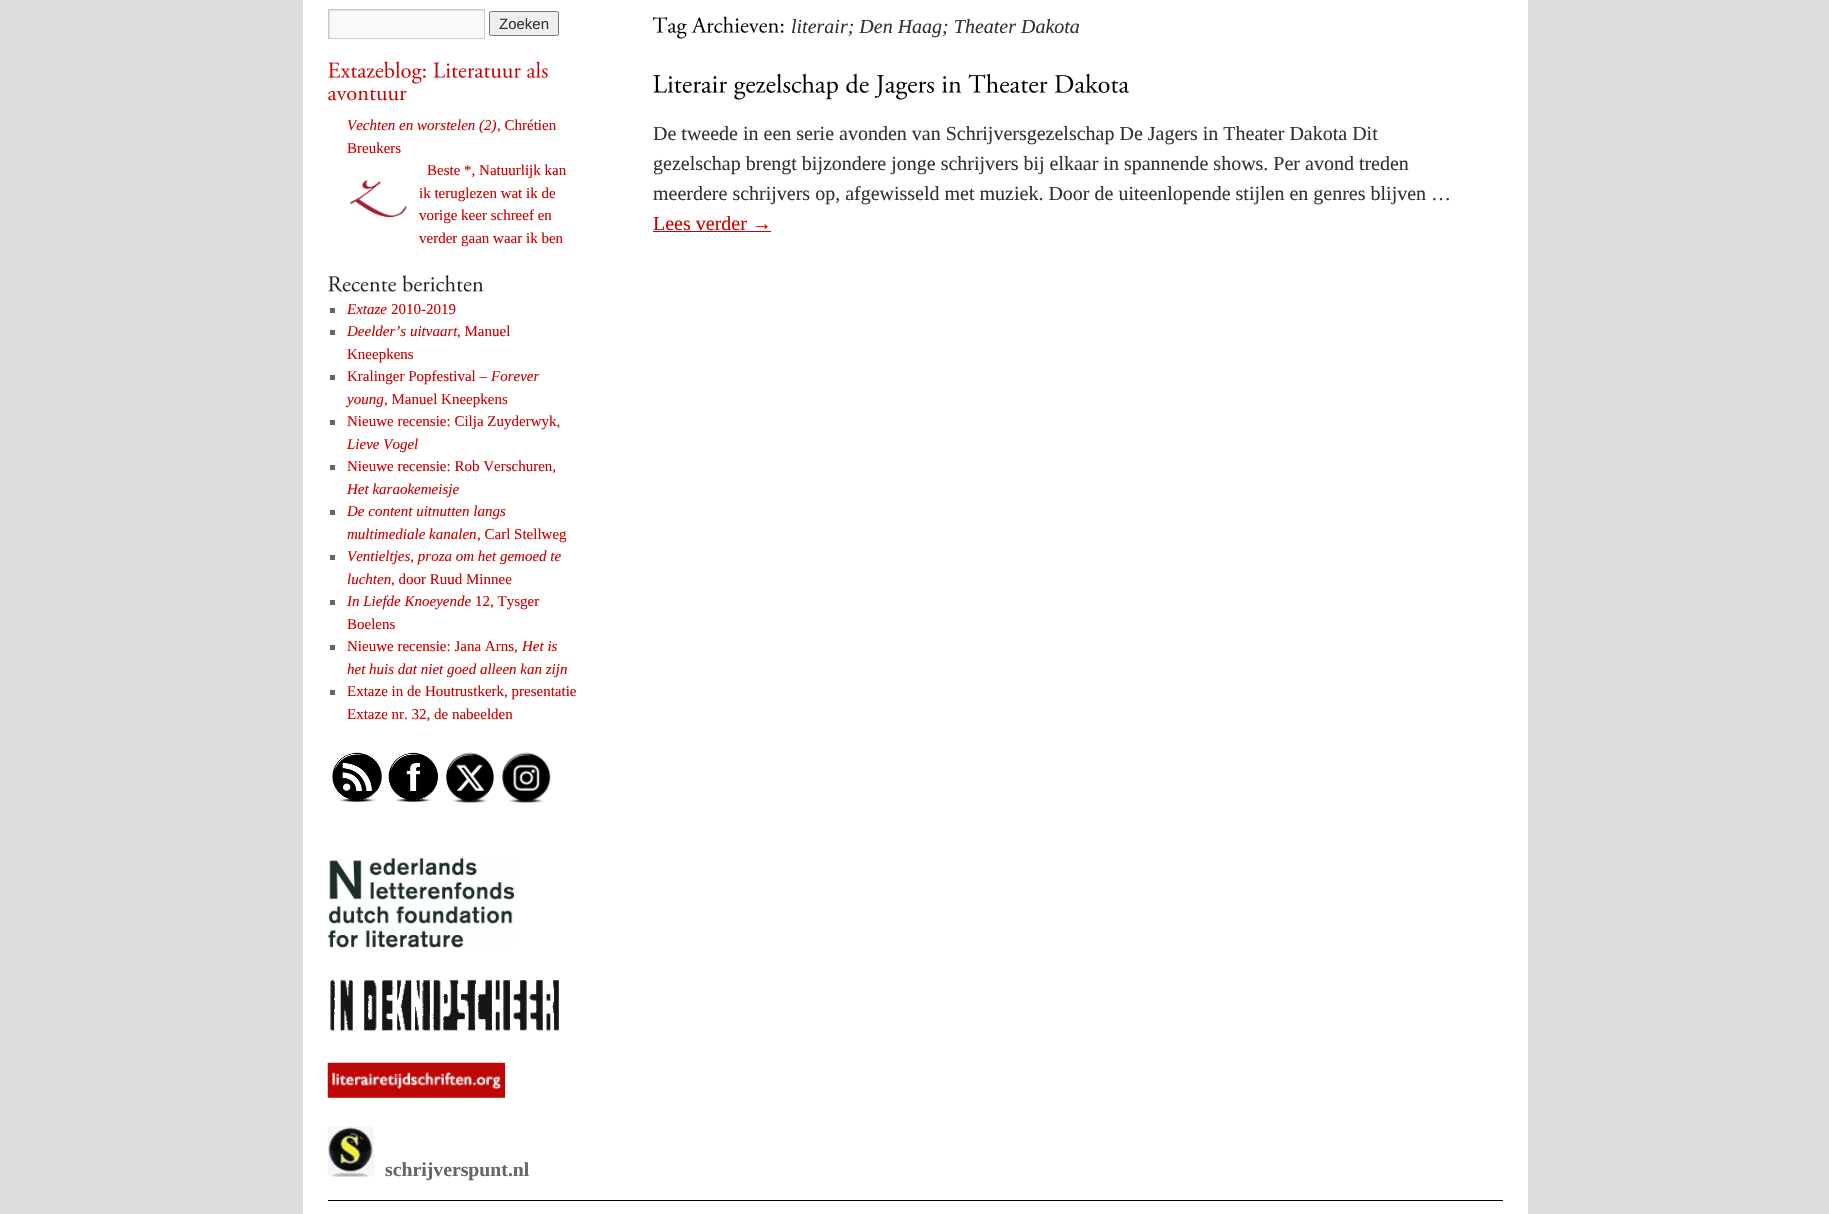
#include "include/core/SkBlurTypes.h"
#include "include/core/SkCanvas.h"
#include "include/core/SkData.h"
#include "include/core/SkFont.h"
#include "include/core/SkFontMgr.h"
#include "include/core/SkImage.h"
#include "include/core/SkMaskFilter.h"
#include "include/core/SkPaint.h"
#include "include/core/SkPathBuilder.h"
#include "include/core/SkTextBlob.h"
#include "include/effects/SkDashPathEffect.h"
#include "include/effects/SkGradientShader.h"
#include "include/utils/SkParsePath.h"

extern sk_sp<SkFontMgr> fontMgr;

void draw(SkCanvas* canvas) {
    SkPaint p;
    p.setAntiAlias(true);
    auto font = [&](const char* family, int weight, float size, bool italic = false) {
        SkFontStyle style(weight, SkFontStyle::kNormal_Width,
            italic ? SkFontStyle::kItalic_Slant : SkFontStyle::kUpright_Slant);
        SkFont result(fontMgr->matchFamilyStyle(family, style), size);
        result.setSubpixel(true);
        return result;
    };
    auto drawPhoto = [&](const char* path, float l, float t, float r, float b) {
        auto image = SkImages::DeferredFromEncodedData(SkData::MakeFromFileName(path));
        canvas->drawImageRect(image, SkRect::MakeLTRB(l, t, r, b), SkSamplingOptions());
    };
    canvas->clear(0xFFDCDCDB);
    p.setColor(0xFFFFFFFF);
    canvas->drawRect(SkRect::MakeLTRB(303, 0, 1528, 1214), p);
    p.setColor(0xFFF9F9F9);
    canvas->drawRect(SkRect::MakeLTRB(330, 11, 484, 38), p);
    canvas->save();
    canvas->clipRect(SkRect::MakeLTRB(329, 10, 484, 38));
    p.setColor(0xFFE0E0E0);
    canvas->drawPath(SkPathBuilder(SkPathFillType::kEvenOdd).moveTo(205, -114).lineTo(608, -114).lineTo(608, 161).lineTo(205, 161).close().moveTo(330, 11).lineTo(485, 11).lineTo(485, 39).lineTo(330, 39).close().detach(), p);
    canvas->restore();
    p.setStyle(SkPaint::kStroke_Style);
    p.setStrokeWidth(1);
    p.setColor(0xFFCCCCCC);
    canvas->drawRect(SkRect::MakeLTRB(328.5f, 9.5f, 484.5f, 38.5f), p);
    p.setStyle(SkPaint::kFill_Style);
    p.setColor(0xFFEFEFEF);
    canvas->drawRoundRect(SkRect::MakeLTRB(489.5f, 11.5f, 558.5f, 35.5f), 2, 2, p);
    p.setStyle(SkPaint::kStroke_Style);
    p.setColor(0xFF767676);
    canvas->drawRoundRect(SkRect::MakeLTRB(489.5f, 11.5f, 558.5f, 35.5f), 2, 2, p);
    auto font1 = font("Liberation Sans", 400, 15);
    p.setStyle(SkPaint::kFill_Style);
    p.setColor(0xFF333333);
    canvas->drawString("Zoeken", 499, 29, font1, p);
    drawPhoto("media/1.png", 328, 61, 548, 84);
    drawPhoto("media/2.png", 328, 89, 407, 101);
    auto font2 = font("Liberation Serif", 400, 15, true);
    p.setColor(0xFFCC0000);
    canvas->drawString("Vechten en worstelen (2)", 347, 130, font2, p);
    auto font3 = font("Liberation Serif", 400, 15);
    {
        const struct { const char* s; float x, y; } items[] = {
            {", Chrétien", 497, 130},
            {"Breukers", 347, 153},
            {"Beste *, Natuurlijk kan", 427, 175},
        };
        for (auto [s, x, y] : items) {
            canvas->drawString(s, x, y, font3, p);
        }
    }
    drawPhoto("media/3.png", 350, 179, 407, 218);
    {
        const struct { const char* s; float x, y; } items[] = {
            {"ik teruglezen wat ik de", 419, 198},
            {"vorige keer schreef en", 419, 220},
            {"verder gaan waar ik ben", 419, 243},
        };
        for (auto [s, x, y] : items) {
            canvas->drawString(s, x, y, font3, p);
        }
    }
    drawPhoto("media/4.png", 328, 275, 484, 292);
    p.setColor(0xFF666666);
    canvas->drawRect(SkRect::MakeLTRB(330, 308, 335, 313), p);
    p.setColor(0xFFCC0000);
    canvas->drawString("Extaze", 347, 314, font2, p);
    canvas->drawString("2010-2019", 391, 314, font3, p);
    p.setColor(0xFF666666);
    canvas->drawRect(SkRect::MakeLTRB(330, 330, 335, 335), p);
    p.setColor(0xFFCC0000);
    canvas->drawString("Deelder’s uitvaart", 347, 336, font2, p);
    canvas->drawString(", Manuel", 457, 336, font3, p);
    canvas->drawString("Kneepkens", 347, 359, font3, p);
    p.setColor(0xFF666666);
    canvas->drawRect(SkRect::MakeLTRB(330, 375, 335, 380), p);
    p.setColor(0xFFCC0000);
    canvas->drawString("Kralinger Popfestival –", 347, 381, font3, p);
    canvas->drawString("Forever", 491, 381, font2, p);
    canvas->drawString("young", 347, 404, font2, p);
    canvas->drawString(", Manuel Kneepkens", 384, 404, font3, p);
    p.setColor(0xFF666666);
    canvas->drawRect(SkRect::MakeLTRB(330, 420, 335, 425), p);
    p.setColor(0xFFCC0000);
    canvas->drawString("Nieuwe recensie: Cilja Zuyderwyk,", 347, 426, font3, p);
    canvas->drawString("Lieve Vogel", 347, 449, font2, p);
    p.setColor(0xFF666666);
    canvas->drawRect(SkRect::MakeLTRB(330, 465, 335, 470), p);
    p.setColor(0xFFCC0000);
    canvas->drawString("Nieuwe recensie: Rob Verschuren,", 347, 471, font3, p);
    canvas->drawString("Het karaokemeisje", 347, 494, font2, p);
    p.setColor(0xFF666666);
    canvas->drawRect(SkRect::MakeLTRB(330, 510, 335, 515), p);
    p.setColor(0xFFCC0000);
    canvas->drawString("De content uitnutten langs", 347, 516, font2, p);
    canvas->drawString("multimediale kanalen", 347, 539, font2, p);
    canvas->drawString(", Carl Stellweg", 477, 539, font3, p);
    p.setColor(0xFF666666);
    canvas->drawRect(SkRect::MakeLTRB(330, 555, 335, 560), p);
    p.setColor(0xFFCC0000);
    canvas->drawString("Ventieltjes, proza om het gemoed te", 347, 561, font2, p);
    canvas->drawString("luchten", 347, 584, font2, p);
    canvas->drawString(", door Ruud Minnee", 391, 584, font3, p);
    p.setColor(0xFF666666);
    canvas->drawRect(SkRect::MakeLTRB(330, 600, 335, 605), p);
    p.setColor(0xFFCC0000);
    canvas->drawString("In Liefde Knoeyende", 347, 606, font2, p);
    canvas->drawString("12, Tysger", 475, 606, font3, p);
    canvas->drawString("Boelens", 347, 629, font3, p);
    p.setColor(0xFF666666);
    canvas->drawRect(SkRect::MakeLTRB(330, 645, 335, 650), p);
    p.setColor(0xFFCC0000);
    canvas->drawString("Nieuwe recensie: Jana Arns,", 347, 651, font3, p);
    canvas->drawString("Het is", 522, 651, font2, p);
    canvas->drawString("het huis dat niet goed alleen kan zijn", 347, 674, font2, p);
    p.setColor(0xFF666666);
    canvas->drawRect(SkRect::MakeLTRB(330, 690, 335, 695), p);
    p.setColor(0xFFCC0000);
    canvas->drawString("Extaze in de Houtrustkerk, presentatie", 347, 696, font3, p);
    canvas->drawString("Extaze nr. 32, de nabeelden", 347, 719, font3, p);
    drawPhoto("media/5.png", 332, 752, 382, 802);
    drawPhoto("media/6.png", 388, 752, 438, 802);
    drawPhoto("media/7.png", 446, 752, 494, 803);
    drawPhoto("media/8.png", 502, 752, 551, 803);
    drawPhoto("media/9.png", 652, 16, 784, 39);
    auto font4 = font("Liberation Serif", 400, 20, true);
    p.setColor(0xFF333333);
    canvas->drawString("literair; Den Haag; Theater Dakota", 791, 33, font4, p);
    drawPhoto("media/10.png", 653, 73, 1130, 100);
    auto font5 = font("Liberation Serif", 400, 20);
    {
        const struct { const char* s; float x, y; } items[] = {
            {"De tweede in een serie avonden van Schrijversgezelschap De Jagers in Theater Dakota Dit", 653, 140},
            {"gezelschap brengt bijzondere jonge schrijvers bij elkaar in spannende shows. Per avond treden", 653, 170},
            {"meerdere schrijvers op, afgewisseld met muziek. Door de uiteenlopende stijlen en genres blijven …", 653, 200},
        };
        for (auto [s, x, y] : items) {
            canvas->drawString(s, x, y, font5, p);
        }
    }
    p.setColor(0xFFCC0000);
    canvas->drawString("Lees verder →", 653, 230, font5, p);
    canvas->drawRect(SkRect::MakeLTRB(653, 231, 771, 232), p);
    drawPhoto("media/11.png", 328, 857, 515, 948);
    drawPhoto("media/12.png", 330, 980, 559, 1031);
    drawPhoto("media/13.png", 327, 1062, 505, 1098);
    drawPhoto("media/14.png", 327, 1126, 374, 1177);
    auto font6 = font("Liberation Serif", 700, 19.75f);
    p.setColor(0xFF666666);
    canvas->drawString("schrijverspunt.nl", 385, 1176, font6, p);
    p.setColor(0xFF000000);
    canvas->drawRect(SkRect::MakeLTRB(328, 1200, 1503, 1201), p);
}
